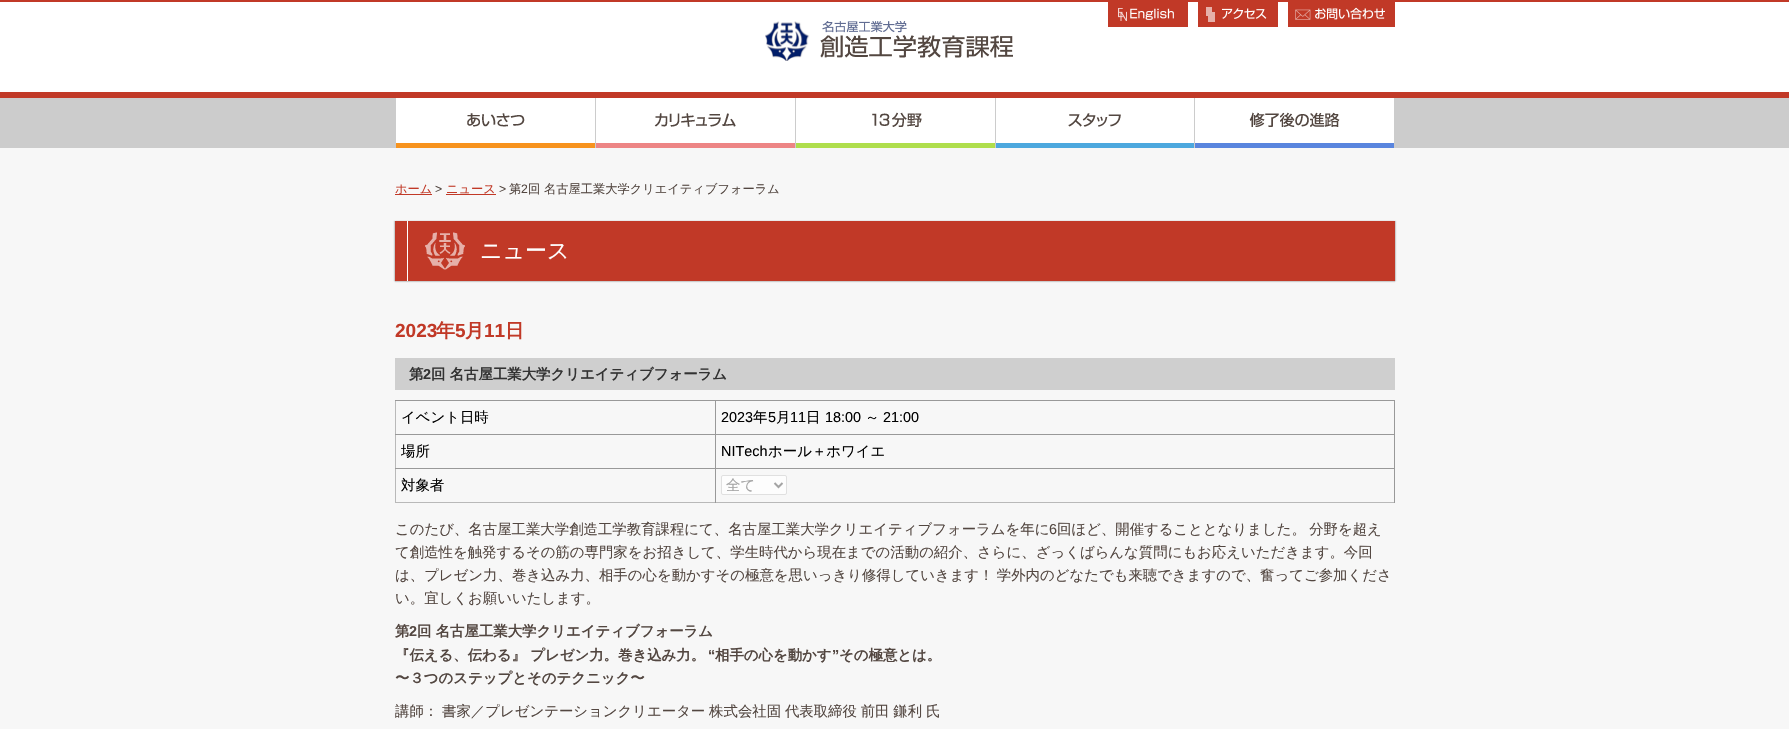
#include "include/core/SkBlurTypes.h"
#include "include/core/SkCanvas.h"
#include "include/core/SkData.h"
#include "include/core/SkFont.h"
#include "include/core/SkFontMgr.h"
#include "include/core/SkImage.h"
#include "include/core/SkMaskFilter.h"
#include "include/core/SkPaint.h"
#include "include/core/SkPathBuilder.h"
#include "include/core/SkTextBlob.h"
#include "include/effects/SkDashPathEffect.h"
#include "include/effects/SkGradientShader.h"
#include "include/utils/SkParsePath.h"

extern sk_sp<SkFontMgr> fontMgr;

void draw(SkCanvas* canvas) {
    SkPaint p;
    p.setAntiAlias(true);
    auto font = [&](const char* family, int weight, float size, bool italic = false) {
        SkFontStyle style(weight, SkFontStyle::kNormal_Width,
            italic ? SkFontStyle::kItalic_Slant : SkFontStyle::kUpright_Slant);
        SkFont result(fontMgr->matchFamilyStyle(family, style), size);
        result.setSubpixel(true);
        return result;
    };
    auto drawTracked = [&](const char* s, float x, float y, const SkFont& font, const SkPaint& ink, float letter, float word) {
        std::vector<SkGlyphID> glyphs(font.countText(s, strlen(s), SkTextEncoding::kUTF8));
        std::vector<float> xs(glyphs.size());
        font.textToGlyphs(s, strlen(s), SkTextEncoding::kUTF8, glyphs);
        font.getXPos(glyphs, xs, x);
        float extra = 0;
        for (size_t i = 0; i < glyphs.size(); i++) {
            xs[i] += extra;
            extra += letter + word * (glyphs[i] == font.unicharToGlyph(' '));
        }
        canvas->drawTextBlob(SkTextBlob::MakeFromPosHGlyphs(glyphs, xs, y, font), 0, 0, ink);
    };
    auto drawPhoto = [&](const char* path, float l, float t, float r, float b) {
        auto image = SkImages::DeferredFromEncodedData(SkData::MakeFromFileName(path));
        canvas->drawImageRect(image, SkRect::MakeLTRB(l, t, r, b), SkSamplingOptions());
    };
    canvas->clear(0xFFFFFFFF);
    p.setColor(0xFFC13927);
    canvas->drawRect(SkRect::MakeLTRB(0, 0, 1789, 2), p);
    drawPhoto("media/1.png", 1108, 2, 1188, 27);
    drawPhoto("media/2.png", 1198, 2, 1278, 27);
    drawPhoto("media/3.png", 1288, 2, 1395, 27);
    drawPhoto("media/4.png", 765, 21, 1013, 61);
    canvas->drawRect(SkRect::MakeLTRB(0, 92, 1789, 98), p);
    p.setColor(0xFFCCCCCC);
    canvas->drawRect(SkRect::MakeLTRB(0, 98, 1789, 148), p);
    drawPhoto("media/5.png", 396, 98, 595, 148);
    drawPhoto("media/6.png", 596, 98, 795, 148);
    drawPhoto("media/7.png", 796, 98, 995, 148);
    drawPhoto("media/8.png", 996, 98, 1194, 148);
    drawPhoto("media/9.png", 1195, 98, 1394, 148);
    p.setColor(0xFFF7F7F7);
    canvas->drawRect(SkRect::MakeLTRB(0, 148, 1789, 729), p);
    p.setColor(0xFFC13927);
    canvas->drawRect(SkRect::MakeLTRB(395, 194, 432, 195), p);
    auto font1 = font("WenQuanYi Zen Hei", 500, 12.25f);
    canvas->drawString("ホーム", 395, 193, font1, p);
    auto font2 = font("Liberation Sans", 400, 12.25f);
    p.setColor(0xFF534741);
    canvas->drawString(">", 435, 193, font2, p);
    p.setColor(0xFFC13927);
    canvas->drawString("ニュース", 446, 193, font1, p);
    canvas->drawRect(SkRect::MakeLTRB(446, 194, 496, 195), p);
    p.setColor(0xFF534741);
    canvas->drawString(">", 499, 193, font2, p);
    canvas->drawString("第", 509, 193, font1, p);
    canvas->drawString("2", 521, 193, font2, p);
    canvas->drawString("回 名古屋工業大学クリエイティブフォーラム", 528, 193, font1, p);
    p.setColor(0xFFCCCCCC);
    p.setMaskFilter(SkMaskFilter::MakeBlur(kNormal_SkBlurStyle, 0.5f));
    canvas->drawRect(SkRect::MakeLTRB(395, 222, 1395, 282), p);
    p.setMaskFilter(nullptr);
    p.setMaskFilter(SkMaskFilter::MakeBlur(kNormal_SkBlurStyle, 0.5f));
    canvas->drawRect(SkRect::MakeLTRB(394, 221, 1394, 281), p);
    p.setMaskFilter(nullptr);
    p.setMaskFilter(SkMaskFilter::MakeBlur(kNormal_SkBlurStyle, 0.5f));
    canvas->drawRect(SkRect::MakeLTRB(396, 221, 1396, 281), p);
    p.setMaskFilter(nullptr);
    drawPhoto("media/10.png", 395, 221, 1395, 281);
    auto font3 = font("WenQuanYi Zen Hei", 500, 22);
    p.setColor(0xFFFFFFFF);
    canvas->drawString("ニュース", 480, 258, font3, p);
    auto font4 = font("Liberation Sans", 700, 19);
    p.setColor(0xFFC13927);
    canvas->drawString("2023", 395, 337, font4, p);
    auto font5 = font("WenQuanYi Zen Hei", 700, 19);
    canvas->drawString("年", 436, 337, font5, p);
    canvas->drawString("5", 455, 337, font4, p);
    canvas->drawString("月", 465, 337, font5, p);
    canvas->drawString("11", 484, 337, font4, p);
    canvas->drawString("日", 505, 337, font5, p);
    p.setColor(0xFFCFCFCF);
    canvas->drawRect(SkRect::MakeLTRB(395, 358, 1395, 390), p);
    auto font6 = font("WenQuanYi Zen Hei", 700, 14.4f);
    p.setColor(0xFF333333);
    canvas->drawString("第", 409, 379, font6, p);
    auto font7 = font("Liberation Sans", 700, 14.4f);
    canvas->drawString("2", 423, 379, font7, p);
    canvas->drawString("回 名古屋工業大学クリエイティブフォーラム", 431, 379, font6, p);
    {
        const struct { float l, t, r, b; SkColor color; } items[] = {
            {395, 502, 1395, 503, 0xFFB9B9B9},
            {395, 400, 396, 503, 0xFFB9B9B9},
            {395, 400, 1395, 401, 0xFF999999},
            {395, 434, 1395, 435, 0xFF999999},
            {395, 468, 1395, 469, 0xFF999999},
            {715, 468, 716, 503, 0xFF999999},
            {715, 434, 716, 469, 0xFF999999},
            {715, 400, 716, 435, 0xFF999999},
        };
        for (auto [l, t, r, b, color] : items) {
            p.setColor(color);
            canvas->drawRect(SkRect::MakeLTRB(l, t, r, b), p);
        }
    }
    auto font8 = font("WenQuanYi Zen Hei", 500, 14.4f);
    p.setColor(0xFF000000);
    canvas->drawString("イベント日時", 401, 422, font8, p);
    {
        const struct { float l, t, r, b; SkColor color; } items[] = {
            {1394, 468, 1395, 503, 0xFF999999},
            {1394, 434, 1395, 469, 0xFF999999},
            {1394, 400, 1395, 435, 0xFF999999},
        };
        for (auto [l, t, r, b, color] : items) {
            p.setColor(color);
            canvas->drawRect(SkRect::MakeLTRB(l, t, r, b), p);
        }
    }
    auto font9 = font("Liberation Sans", 400, 14.4f);
    p.setColor(0xFF000000);
    canvas->drawString("2023", 721, 422, font9, p);
    canvas->drawString("年", 753, 422, font8, p);
    canvas->drawString("5", 768, 422, font9, p);
    canvas->drawString("月", 776, 422, font8, p);
    canvas->drawString("11", 790, 422, font9, p);
    canvas->drawString("日", 806, 422, font8, p);
    canvas->drawString("18:00", 825, 422, font9, p);
    canvas->drawString("～", 865, 422, font8, p);
    canvas->drawString("21:00", 883, 422, font9, p);
    canvas->drawString("場所", 401, 456, font8, p);
    canvas->drawString("NITech", 721, 456, font9, p);
    canvas->drawString("ホール＋ホワイエ", 768, 456, font8, p);
    canvas->drawString("対象者", 401, 490, font8, p);
    p.setColor(0xFFFDFDFD);
    canvas->drawRoundRect(SkRect::MakeLTRB(721.5f, 475.5f, 786.5f, 494.5f), 1.5f, 1.5f, p);
    p.setStyle(SkPaint::kStroke_Style);
    p.setStrokeWidth(1);
    p.setColor(0xFFE0E0E0);
    canvas->drawRoundRect(SkRect::MakeLTRB(721.5f, 475.5f, 786.5f, 494.5f), 1.5f, 1.5f, p);
    p.setStrokeWidth(2);
    p.setColor(0xFFA4A4A4);
    canvas->drawPath(SkPathBuilder().moveTo(774.5f, 483).lineTo(778.5f, 487).lineTo(782.5f, 483).detach(), p);
    p.setStyle(SkPaint::kFill_Style);
    canvas->drawString("全て", 726, 490, font8, p);
    p.setColor(0xFF534741);
    canvas->drawString("このたび、名古屋工業大学創造工学教育課程にて、名古屋工業大学クリエイティブフォーラムを年に", 395, 534, font8, p);
    canvas->drawString("6", 1049, 534, font9, p);
    drawTracked("回ほど、開催することとなりました。 分野を超え", 1057, 534, font8, p, 0, -1);
    canvas->drawString("て創造性を触発するその筋の専門家をお招きして、学生時代から現在までの活動の紹介、さらに、ざっくばらんな質問にもお応えいただきます。今回", 395, 557, font8, p);
    drawTracked("は、プレゼン力、巻き込み力、相手の心を動かすその極意を思いっきり修得していきます！ 学外内のどなたでも来聴できますので、奮ってご参加くださ", 395, 580, font8, p, 0, -1);
    canvas->drawString("い。宜しくお願いいたします。", 395, 603, font8, p);
    canvas->drawString("第", 395, 636, font6, p);
    canvas->drawString("2", 409, 636, font7, p);
    canvas->drawString("回 名古屋工業大学クリエイティブフォーラム", 417, 636, font6, p);
    canvas->drawString("『伝える、伝わる』 プレゼン力。巻き込み力。", 395, 660, font6, p);
    canvas->drawString("“", 708, 660, font7, p);
    canvas->drawString("相手の心を動かす", 715, 660, font6, p);
    canvas->drawString("”", 832, 660, font7, p);
    canvas->drawString("その極意とは。", 839, 660, font6, p);
    canvas->drawString("〜３つのステップとそのテクニック〜", 395, 683, font6, p);
    drawTracked("講師： 書家／プレゼンテーションクリエーター 株式会社固 代表取締役 前田 鎌利 氏", 395, 716, font8, p, 0, -0.5f);
}
